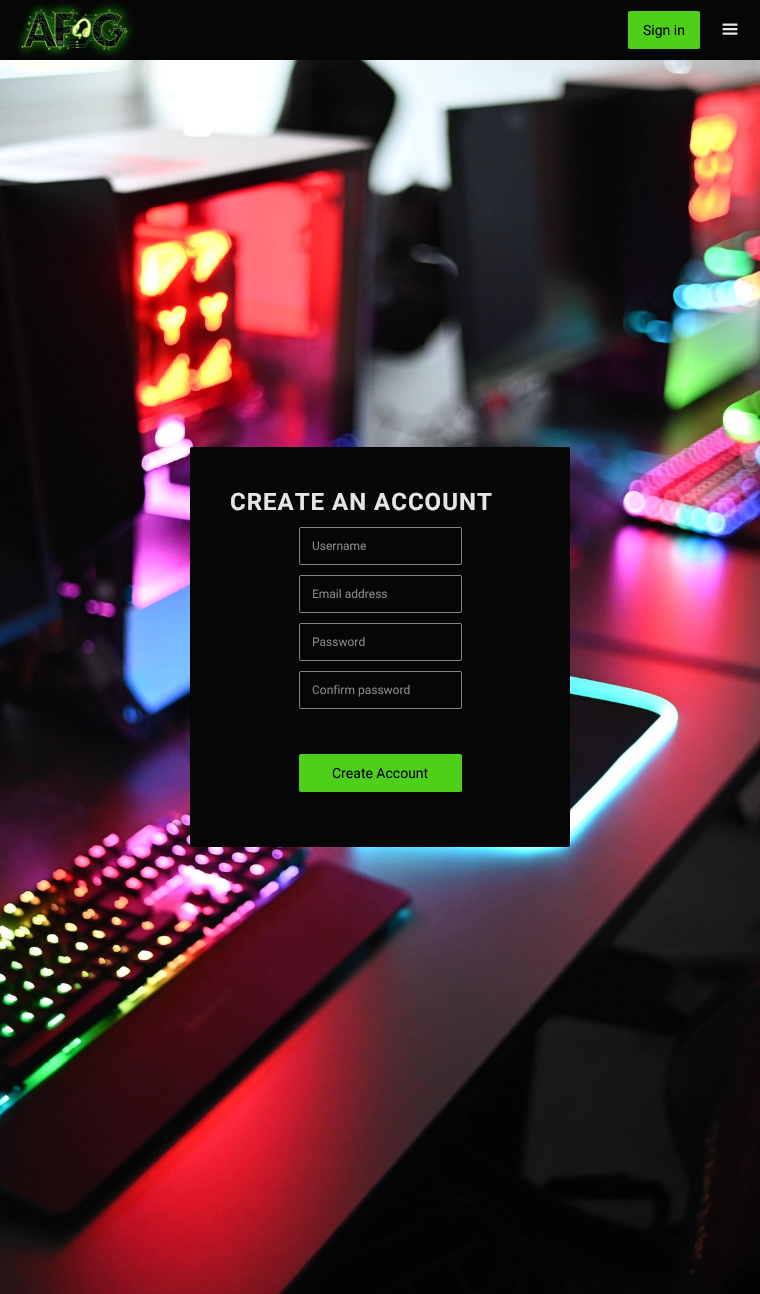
#include "include/core/SkBlurTypes.h"
#include "include/core/SkCanvas.h"
#include "include/core/SkData.h"
#include "include/core/SkFont.h"
#include "include/core/SkFontMgr.h"
#include "include/core/SkImage.h"
#include "include/core/SkMaskFilter.h"
#include "include/core/SkPaint.h"
#include "include/core/SkPathBuilder.h"
#include "include/core/SkTextBlob.h"
#include "include/effects/SkDashPathEffect.h"
#include "include/effects/SkGradientShader.h"
#include "include/utils/SkParsePath.h"

extern sk_sp<SkFontMgr> fontMgr;

void draw(SkCanvas* canvas) {
    SkPaint p;
    p.setAntiAlias(true);
    auto font = [&](const char* family, int weight, float size, bool italic = false) {
        SkFontStyle style(weight, SkFontStyle::kNormal_Width,
            italic ? SkFontStyle::kItalic_Slant : SkFontStyle::kUpright_Slant);
        SkFont result(fontMgr->matchFamilyStyle(family, style), size);
        result.setSubpixel(true);
        return result;
    };
    auto drawTracked = [&](const char* s, float x, float y, const SkFont& font, const SkPaint& ink, float letter, float word) {
        std::vector<SkGlyphID> glyphs(font.countText(s, strlen(s), SkTextEncoding::kUTF8));
        std::vector<float> xs(glyphs.size());
        font.textToGlyphs(s, strlen(s), SkTextEncoding::kUTF8, glyphs);
        font.getXPos(glyphs, xs, x);
        float extra = 0;
        for (size_t i = 0; i < glyphs.size(); i++) {
            xs[i] += extra;
            extra += letter + word * (glyphs[i] == font.unicharToGlyph(' '));
        }
        canvas->drawTextBlob(SkTextBlob::MakeFromPosHGlyphs(glyphs, xs, y, font), 0, 0, ink);
    };
    auto drawPhoto = [&](const char* path, float l, float t, float r, float b) {
        auto image = SkImages::DeferredFromEncodedData(SkData::MakeFromFileName(path));
        canvas->drawImageRect(image, SkRect::MakeLTRB(l, t, r, b), SkSamplingOptions());
    };
    canvas->clear(0xFFFFFFFF);
    p.setColor(0xFF060606);
    canvas->drawRect(SkRect::MakeLTRB(0, 0, 760, 60), p);
    drawPhoto("media/1.png", 16, 1, 135, 58);
    p.setColor(0xFF4ED01A);
    canvas->drawRoundRect(SkRect::MakeLTRB(628, 11, 700, 49), 2, 2, p);
    auto font1 = font("Roboto", 400, 14);
    p.setColor(0xFF060606);
    canvas->drawString("Sign in", 643, 35, font1, p);
    drawPhoto("media/2.png", 722, 23, 738, 35);
    drawPhoto("media/3.png", 0, 60, 760, 1294);
    canvas->drawRoundRect(SkRect::MakeLTRB(190, 447, 570, 847), 2, 2, p);
    auto font2 = font("Roboto", 700, 24);
    p.setColor(0xFFE6E6E6);
    drawTracked("CREATE AN ACCOUNT", 230, 510, font2, p, 1, 0);
    p.setStyle(SkPaint::kStroke_Style);
    p.setStrokeWidth(1);
    p.setColor(0xFF848584);
    canvas->drawRoundRect(SkRect::MakeLTRB(299.5f, 527.5f, 461.5f, 564.5f), 1.5f, 1.5f, p);
    auto font3 = font("Roboto", 400, 12);
    p.setStyle(SkPaint::kFill_Style);
    canvas->drawString("Username", 312, 550, font3, p);
    p.setStyle(SkPaint::kStroke_Style);
    canvas->drawRoundRect(SkRect::MakeLTRB(299.5f, 575.5f, 461.5f, 612.5f), 1.5f, 1.5f, p);
    p.setStyle(SkPaint::kFill_Style);
    canvas->drawString("Email address", 312, 598, font3, p);
    p.setStyle(SkPaint::kStroke_Style);
    canvas->drawRoundRect(SkRect::MakeLTRB(299.5f, 623.5f, 461.5f, 660.5f), 1.5f, 1.5f, p);
    p.setStyle(SkPaint::kFill_Style);
    canvas->drawString("Password", 312, 646, font3, p);
    p.setStyle(SkPaint::kStroke_Style);
    canvas->drawRoundRect(SkRect::MakeLTRB(299.5f, 671.5f, 461.5f, 708.5f), 1.5f, 1.5f, p);
    p.setStyle(SkPaint::kFill_Style);
    canvas->drawString("Confirm password", 312, 694, font3, p);
    p.setColor(0xFF4ED01A);
    canvas->drawRoundRect(SkRect::MakeLTRB(299, 754, 462, 792), 2, 2, p);
    p.setColor(0xFF060606);
    canvas->drawString("Create Account", 332, 778, font1, p);
}
